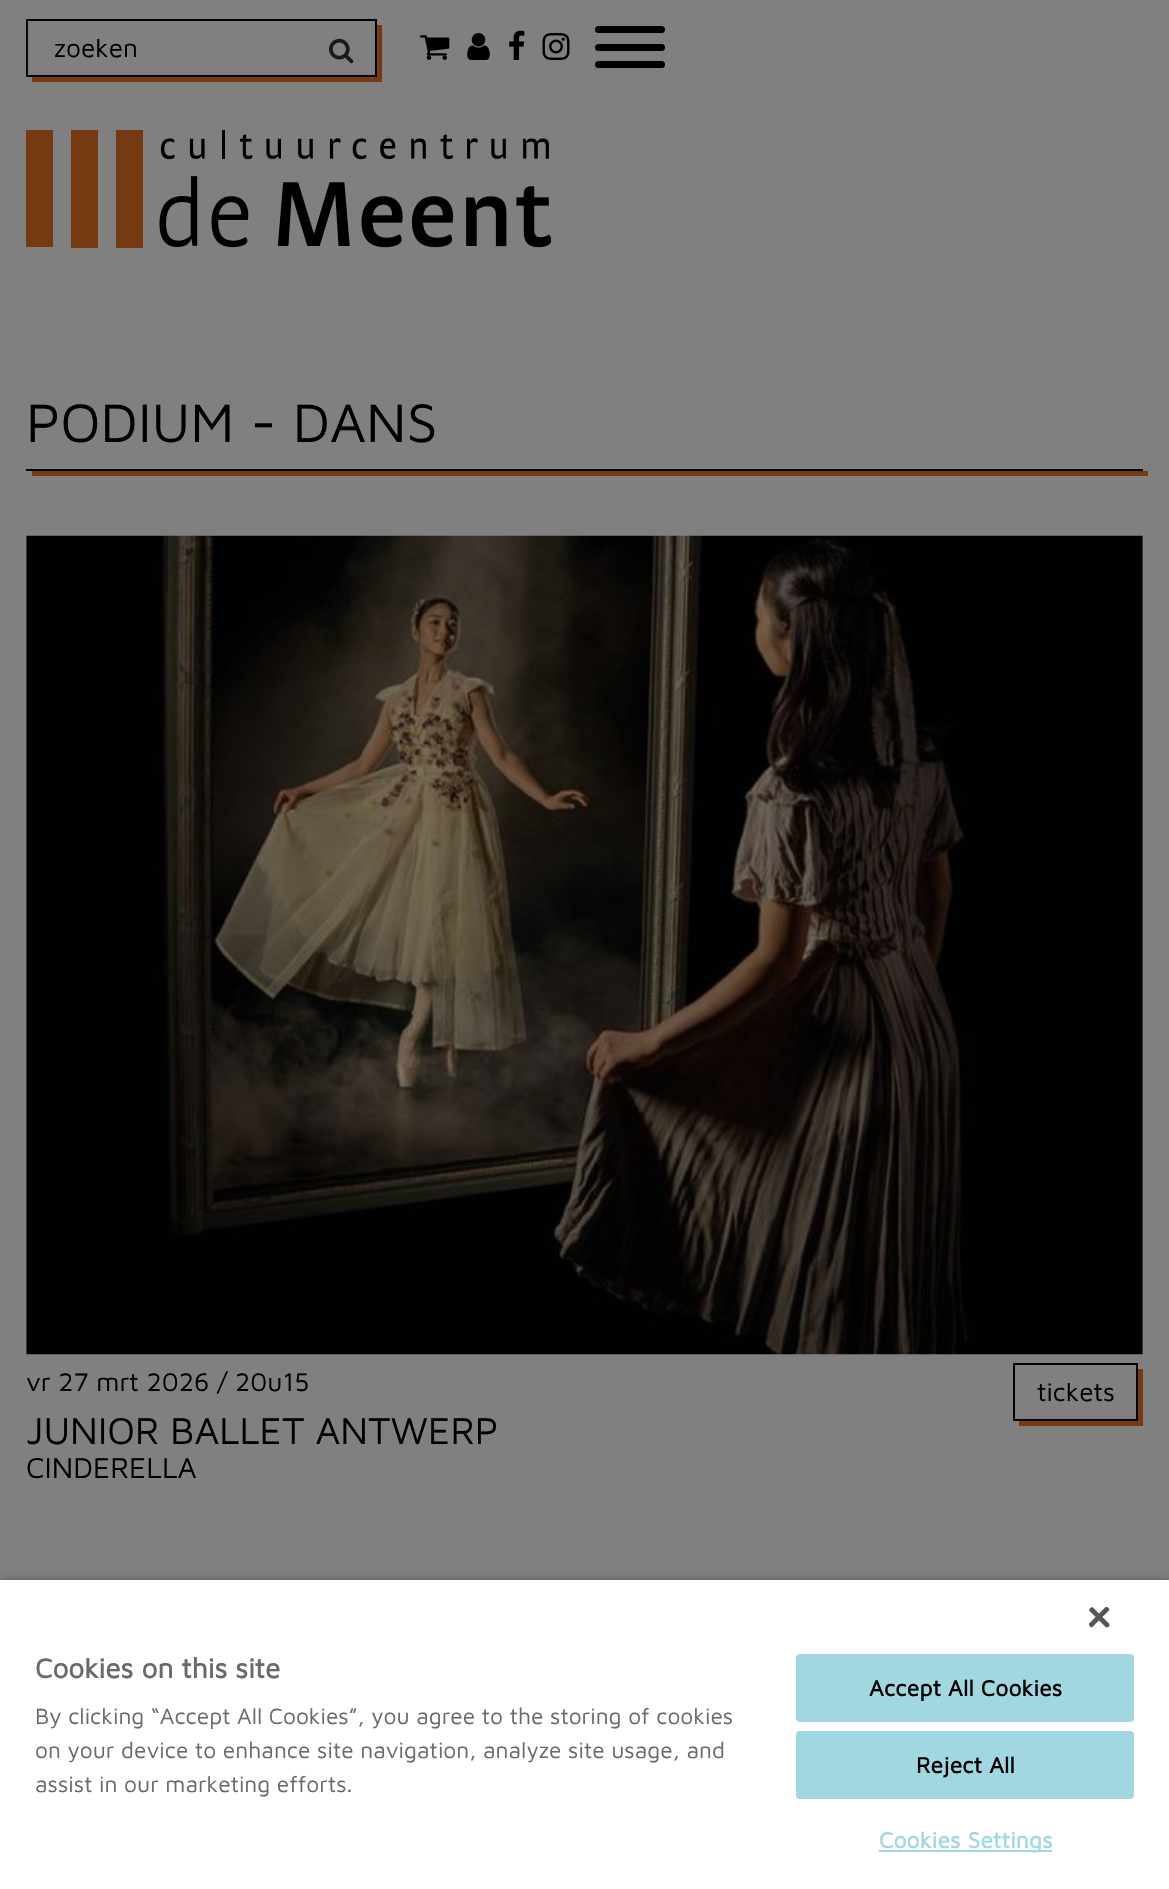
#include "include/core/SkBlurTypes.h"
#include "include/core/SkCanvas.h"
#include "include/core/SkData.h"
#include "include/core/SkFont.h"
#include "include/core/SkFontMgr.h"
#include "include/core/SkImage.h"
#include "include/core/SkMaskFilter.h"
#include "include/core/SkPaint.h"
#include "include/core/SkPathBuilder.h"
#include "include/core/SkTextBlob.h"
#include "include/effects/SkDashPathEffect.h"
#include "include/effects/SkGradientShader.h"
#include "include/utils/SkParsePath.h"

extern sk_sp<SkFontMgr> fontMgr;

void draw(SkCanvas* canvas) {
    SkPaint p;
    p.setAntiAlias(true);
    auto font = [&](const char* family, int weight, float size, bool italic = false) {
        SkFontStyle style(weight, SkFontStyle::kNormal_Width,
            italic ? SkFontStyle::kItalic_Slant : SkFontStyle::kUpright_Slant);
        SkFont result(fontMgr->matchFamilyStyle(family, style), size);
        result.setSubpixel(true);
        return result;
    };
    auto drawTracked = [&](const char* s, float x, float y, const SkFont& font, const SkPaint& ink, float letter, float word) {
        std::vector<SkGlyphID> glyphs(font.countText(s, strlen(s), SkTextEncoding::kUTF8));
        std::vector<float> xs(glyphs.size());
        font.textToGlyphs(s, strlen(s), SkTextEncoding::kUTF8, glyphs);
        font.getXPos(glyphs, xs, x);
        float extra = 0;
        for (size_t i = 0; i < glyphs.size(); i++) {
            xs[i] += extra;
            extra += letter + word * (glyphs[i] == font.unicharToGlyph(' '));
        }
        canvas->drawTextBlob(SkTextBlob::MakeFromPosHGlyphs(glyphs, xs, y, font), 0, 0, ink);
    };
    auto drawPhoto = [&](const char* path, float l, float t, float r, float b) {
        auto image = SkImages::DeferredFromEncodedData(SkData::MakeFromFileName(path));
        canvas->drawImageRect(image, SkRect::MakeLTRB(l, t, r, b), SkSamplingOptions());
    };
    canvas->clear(0xFF808080);
    p.setColor(0xFF773A12);
    canvas->drawPath(SkPathBuilder().moveTo(32, 77).lineTo(32, 82).lineTo(382, 82).lineTo(382, 25).lineTo(376, 25).lineTo(376, 77).close().detach(), p);
    {
        const struct { float l, t, r, b; SkColor color; } items[] = {
            {26, 19, 376, 21, 0xFF000000},
            {26, 75, 310, 77, 0xFF000000},
            {26, 19, 28, 77, 0xFF000000},
        };
        for (auto [l, t, r, b, color] : items) {
            p.setColor(color);
            canvas->drawRect(SkRect::MakeLTRB(l, t, r, b), p);
        }
    }
    auto font1 = font("Maven Pro", 400, 26.25f);
    canvas->drawString("zoeken", 54, 57, font1, p);
    canvas->drawRect(SkRect::MakeLTRB(375, 19, 377, 77), p);
    canvas->drawRect(SkRect::MakeLTRB(308, 75, 376, 77), p);
    drawPhoto("media/1.png", 329, 38, 354, 64);
    drawPhoto("media/2.png", 420, 35, 450, 60);
    drawPhoto("media/3.png", 467, 33, 490, 60);
    drawPhoto("media/4.png", 509, 30, 525, 60);
    drawPhoto("media/5.png", 542, 33, 570, 60);
    canvas->drawRoundRect(SkRect::MakeLTRB(595, 44, 665, 51), 3.5f, 3.5f, p);
    canvas->drawRoundRect(SkRect::MakeLTRB(595, 26, 665, 33), 3.5f, 3.5f, p);
    canvas->drawRoundRect(SkRect::MakeLTRB(595, 61, 665, 68), 3.5f, 3.5f, p);
    drawPhoto("media/6.png", 26, 130, 551, 248);
    canvas->drawRect(SkRect::MakeLTRB(26, 469, 1143, 471), p);
    auto font2 = font("Maven Pro", 400, 56);
    canvas->drawString("PODIUM - DANS", 26, 442, font2, p);
    p.setColor(0xFF773A12);
    canvas->drawRect(SkRect::MakeLTRB(32, 471, 1148, 476), p);
    drawPhoto("media/7.png", 26, 535, 1143, 1355);
    p.setColor(0xFF000000);
    canvas->drawString("vr 27 mrt 2026 / 20u15", 26, 1391, font1, p);
    p.setColor(0xFF773A12);
    canvas->drawPath(SkPathBuilder().moveTo(1019, 1421).lineTo(1019, 1426).lineTo(1143, 1426).lineTo(1143, 1369).lineTo(1138, 1369).lineTo(1138, 1421).close().detach(), p);
    p.setStyle(SkPaint::kStroke_Style);
    p.setStrokeWidth(2);
    p.setColor(0xFF000000);
    canvas->drawRect(SkRect::MakeLTRB(1014, 1364, 1137, 1420), p);
    p.setStyle(SkPaint::kFill_Style);
    canvas->drawString("tickets", 1037, 1401, font1, p);
    auto font3 = font("Maven Pro", 400, 38.5f);
    canvas->drawString("JUNIOR BALLET ANTWERP", 26, 1444, font3, p);
    auto font4 = font("Maven Pro", 400, 29.75f);
    canvas->drawString("CINDERELLA", 26, 1478, font4, p);
    p.setColor(0x59000000);
    p.setMaskFilter(SkMaskFilter::MakeBlur(kNormal_SkBlurStyle, 3.5f));
    canvas->drawRect(SkRect::MakeLTRB(0, 1580, 1169, 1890), p);
    p.setMaskFilter(nullptr);
    p.setColor(0xFFFFFFFF);
    canvas->drawRect(SkRect::MakeLTRB(0, 1580, 1169, 1889), p);
    drawPhoto("media/8.png", 1089, 1607, 1110, 1628);
    auto font5 = font("Maven Pro", 700, 28);
    p.setColor(0xFF696969);
    canvas->drawString("Cookies on this site", 35, 1678, font5, p);
    auto font6 = font("Maven Pro", 400, 22.75f);
    {
        const struct { const char* s; float x, y; } items[] = {
            {"By clicking “Accept All Cookies”, you agree to the storing of cookies", 35, 1724},
            {"on your device to enhance site navigation, analyze site usage, and", 35, 1758},
            {"assist in our marketing efforts.", 35, 1792},
        };
        for (auto [s, x, y] : items) {
            canvas->drawString(s, x, y, font6, p);
        }
    }
    p.setColor(0xFFA1D7E0);
    canvas->drawRoundRect(SkRect::MakeLTRB(797, 1655, 1133, 1721), 3, 3, p);
    p.setStyle(SkPaint::kStroke_Style);
    canvas->drawRoundRect(SkRect::MakeLTRB(797, 1655, 1133, 1721), 3, 3, p);
    auto font7 = font("Maven Pro", 700, 22.75f);
    p.setStyle(SkPaint::kFill_Style);
    p.setColor(0xFF000000);
    drawTracked("Accept All Cookies", 869, 1696, font7, p, 0.25f, 0);
    p.setColor(0xFFA1D7E0);
    canvas->drawRoundRect(SkRect::MakeLTRB(797, 1732, 1133, 1798), 3, 3, p);
    p.setStyle(SkPaint::kStroke_Style);
    canvas->drawRoundRect(SkRect::MakeLTRB(797, 1732, 1133, 1798), 3, 3, p);
    p.setStyle(SkPaint::kFill_Style);
    p.setColor(0xFF000000);
    drawTracked("Reject All", 916, 1773, font7, p, 0.25f, 0);
    p.setColor(0xFFA1D7E0);
    canvas->drawRect(SkRect::MakeLTRB(879, 1850, 1052, 1852), p);
    drawTracked("Cookies Settings", 879, 1848, font7, p, 0.25f, 0);
}
